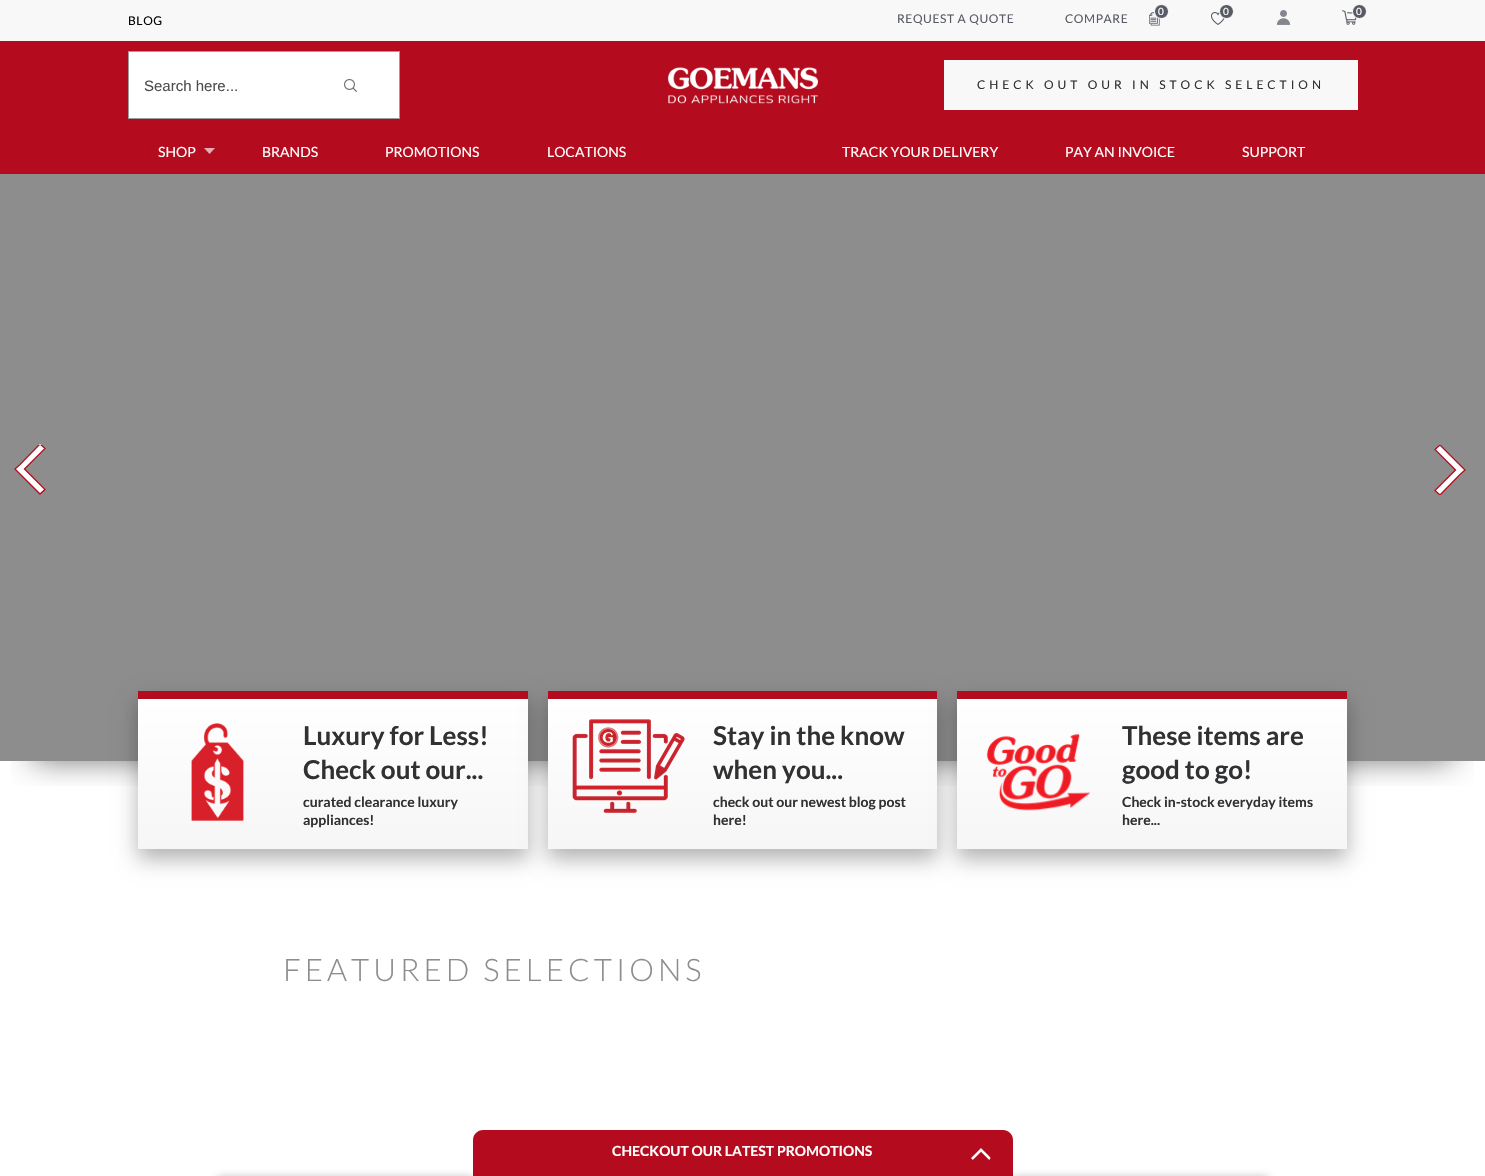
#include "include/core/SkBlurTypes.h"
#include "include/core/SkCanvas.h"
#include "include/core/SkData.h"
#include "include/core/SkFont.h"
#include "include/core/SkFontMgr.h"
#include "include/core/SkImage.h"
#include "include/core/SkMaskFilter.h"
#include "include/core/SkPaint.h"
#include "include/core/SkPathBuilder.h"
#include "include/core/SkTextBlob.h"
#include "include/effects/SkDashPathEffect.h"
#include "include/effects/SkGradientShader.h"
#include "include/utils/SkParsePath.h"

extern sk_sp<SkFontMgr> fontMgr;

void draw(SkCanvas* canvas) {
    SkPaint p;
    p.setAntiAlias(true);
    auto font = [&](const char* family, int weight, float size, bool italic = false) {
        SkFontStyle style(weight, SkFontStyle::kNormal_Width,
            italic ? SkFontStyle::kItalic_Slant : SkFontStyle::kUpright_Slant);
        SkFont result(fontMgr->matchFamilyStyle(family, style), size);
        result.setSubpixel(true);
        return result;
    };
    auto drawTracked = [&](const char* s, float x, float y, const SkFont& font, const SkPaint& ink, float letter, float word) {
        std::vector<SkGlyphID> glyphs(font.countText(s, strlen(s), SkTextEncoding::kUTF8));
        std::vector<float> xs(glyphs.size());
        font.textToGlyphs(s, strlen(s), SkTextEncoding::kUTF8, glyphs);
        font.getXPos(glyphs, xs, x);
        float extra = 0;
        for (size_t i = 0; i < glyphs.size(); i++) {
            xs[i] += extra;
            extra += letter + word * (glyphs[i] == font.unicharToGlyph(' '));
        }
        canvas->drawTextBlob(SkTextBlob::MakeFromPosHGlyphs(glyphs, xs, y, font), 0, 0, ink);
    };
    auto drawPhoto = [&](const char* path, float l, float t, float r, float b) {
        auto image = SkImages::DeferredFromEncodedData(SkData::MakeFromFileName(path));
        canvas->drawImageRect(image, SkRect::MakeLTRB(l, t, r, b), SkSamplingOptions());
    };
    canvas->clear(0xFFFFFFFF);
    p.setColor(0xFFF8F8F8);
    canvas->drawRect(SkRect::MakeLTRB(0, 0, 1485, 41), p);
    auto font1 = font("Lato", 400, 12);
    p.setColor(0xFF000000);
    drawTracked("BLOG", 128, 25, font1, p, 0.6f, 0);
    p.setColor(0xFF585B65);
    drawTracked("REQUEST A QUOTE", 897, 23, font1, p, 0.6f, 0);
    drawTracked("COMPARE", 1065, 23, font1, p, 0.6f, 0);
    drawPhoto("media/1.png", 1149, 12, 1160, 26);
    canvas->drawCircle(1161.5f, 11.5f, 7, p);
    p.setStyle(SkPaint::kStroke_Style);
    p.setStrokeWidth(1);
    p.setColor(0xFFFFFFFF);
    canvas->drawCircle(1161.5f, 11.5f, 7, p);
    auto font2 = font("Lato", 400, 10);
    p.setStyle(SkPaint::kFill_Style);
    drawTracked("0", 1158, 15, font2, p, 0.6f, 0);
    drawPhoto("media/2.png", 1211, 12, 1225, 25);
    p.setColor(0xFF585B65);
    canvas->drawCircle(1226.5f, 11.5f, 7, p);
    p.setStyle(SkPaint::kStroke_Style);
    p.setColor(0xFFFFFFFF);
    canvas->drawCircle(1226.5f, 11.5f, 7, p);
    p.setStyle(SkPaint::kFill_Style);
    drawTracked("0", 1223, 15, font2, p, 0.6f, 0);
    drawPhoto("media/3.png", 1276, 10, 1291, 25);
    drawPhoto("media/4.png", 1342, 10, 1357, 25);
    p.setColor(0xFF585B65);
    canvas->drawCircle(1359.5f, 11.5f, 7, p);
    p.setStyle(SkPaint::kStroke_Style);
    p.setColor(0xFFFFFFFF);
    canvas->drawCircle(1359.5f, 11.5f, 7, p);
    p.setStyle(SkPaint::kFill_Style);
    drawTracked("0", 1356, 15, font2, p, 0.6f, 0);
    p.setColor(0xFFB40C1E);
    canvas->drawRect(SkRect::MakeLTRB(0, 41, 1485, 174), p);
    p.setColor(0xFFFFFFFF);
    canvas->drawRect(SkRect::MakeLTRB(128.5f, 51.5f, 399.5f, 118.5f), p);
    p.setStyle(SkPaint::kStroke_Style);
    p.setColor(0xFF9D9D9E);
    canvas->drawRect(SkRect::MakeLTRB(128.5f, 51.5f, 399.5f, 118.5f), p);
    auto font3 = font("Liberation Sans", 400, 15);
    p.setStyle(SkPaint::kFill_Style);
    p.setColor(0xFF4D4D4D);
    canvas->drawString("Search here...", 144, 91, font3, p);
    drawPhoto("media/5.png", 344, 79, 357, 92);
    drawPhoto("media/6.png", 668, 67, 818, 104);
    p.setColor(0xFFF8F8F8);
    canvas->drawRect(SkRect::MakeLTRB(944, 60, 1358, 110), p);
    p.setColor(0xFF303133);
    drawTracked("CHECK OUT OUR IN STOCK SELECTION", 977, 89, font1, p, 4, 0);
    auto font4 = font("Lato", 400, 14);
    p.setColor(0xFFFFFFFF);
    canvas->drawString("SHOP", 158, 157, font4, p);
    drawPhoto("media/7.png", 204, 148, 215, 154);
    {
        const struct { const char* s; float x, y; } items[] = {
            {"BRANDS", 262, 157},
            {"PROMOTIONS", 385, 157},
            {"LOCATIONS", 547, 157},
            {"TRACK YOUR DELIVERY", 842, 157},
            {"PAY AN INVOICE", 1065, 157},
            {"SUPPORT", 1242, 157},
        };
        for (auto [s, x, y] : items) {
            canvas->drawString(s, x, y, font4, p);
        }
    }
    p.setColor(0xFF8D8D8D);
    canvas->drawRect(SkRect::MakeLTRB(0, 174, 1485, 761), p);
    p.setColor(0xFFFFFFFF);
    canvas->drawPath(SkPathBuilder().moveTo(20, 464).lineTo(40, 444).lineTo(45, 449).lineTo(24, 469).lineTo(45, 489).lineTo(40, 494).lineTo(15, 469).close().detach(), p);
    canvas->save();
    canvas->clipRect(SkRect::MakeLTRB(5, 445, 55, 495));
    p.setStyle(SkPaint::kStroke_Style);
    p.setStrokeWidth(1.3f);
    p.setColor(0xFFB40C1E);
    canvas->drawPath(SkPathBuilder().moveTo(20, 464.5f).lineTo(40, 444).lineTo(45, 448.5f).lineTo(24.5f, 469).lineTo(45, 489.5f).lineTo(40, 494).lineTo(15, 469).close().detach(), p);
    canvas->restore();
    p.setStyle(SkPaint::kFill_Style);
    p.setColor(0xFFFFFFFF);
    canvas->drawPath(SkPathBuilder().moveTo(1460, 475).lineTo(1440, 495).lineTo(1435, 490).lineTo(1456, 470).lineTo(1435, 450).lineTo(1440, 445).lineTo(1465, 470).close().detach(), p);
    canvas->save();
    canvas->clipRect(SkRect::MakeLTRB(1425, 445, 1475, 495));
    p.setStyle(SkPaint::kStroke_Style);
    p.setColor(0xFFB40C1E);
    canvas->drawPath(SkPathBuilder().moveTo(1460, 474.5f).lineTo(1440, 495).lineTo(1435, 490.5f).lineTo(1455.5f, 470).lineTo(1435, 449.5f).lineTo(1440, 445).lineTo(1465, 470).close().detach(), p);
    canvas->restore();
    drawPhoto("media/8.png", 11, 761, 1474, 786);
    p.setStyle(SkPaint::kFill_Style);
    p.setColor(0x4D000000);
    p.setMaskFilter(SkMaskFilter::MakeBlur(kNormal_SkBlurStyle, 10));
    canvas->drawRect(SkRect::MakeLTRB(138, 701, 528, 859), p);
    p.setMaskFilter(nullptr);
    {
        const SkColor colors[] = {0xFFFFFFFF, 0xFFF6F6F6};
        const float stops[] = {0, 1};
        const SkPoint ends[] = {{333, 699}, {333, 849}};
        p.setShader(SkGradientShader::MakeLinear(ends, colors, stops, 2, SkTileMode::kClamp));
        p.setAlpha(255);
    }
    canvas->drawRect(SkRect::MakeLTRB(138, 699, 528, 849), p);
    p.setShader(nullptr);
    p.setColor(0xFFB40C1E);
    canvas->drawRect(SkRect::MakeLTRB(138, 691, 528, 699), p);
    drawPhoto("media/9.png", 191, 723, 244, 821);
    auto font5 = font("Lato", 700, 26);
    p.setColor(0xFF303133);
    canvas->drawString("Luxury for Less!", 303, 745, font5, p);
    canvas->drawString("Check out our...", 303, 779, font5, p);
    auto font6 = font("Lato", 700, 14);
    canvas->drawString("curated clearance luxury", 303, 807, font6, p);
    canvas->drawString("appliances!", 303, 825, font6, p);
    p.setColor(0x4D000000);
    p.setMaskFilter(SkMaskFilter::MakeBlur(kNormal_SkBlurStyle, 10));
    canvas->drawRect(SkRect::MakeLTRB(548, 701, 937, 859), p);
    p.setMaskFilter(nullptr);
    {
        const SkColor colors[] = {0xFFFFFFFF, 0xFFF6F6F6};
        const float stops[] = {0, 1};
        const SkPoint ends[] = {{743, 699}, {743, 849}};
        p.setShader(SkGradientShader::MakeLinear(ends, colors, stops, 2, SkTileMode::kClamp));
        p.setAlpha(255);
    }
    canvas->drawRect(SkRect::MakeLTRB(548, 699, 937, 849), p);
    p.setShader(nullptr);
    p.setColor(0xFFB40C1E);
    canvas->drawRect(SkRect::MakeLTRB(548, 691, 937, 699), p);
    drawPhoto("media/10.png", 572, 719, 685, 813);
    p.setColor(0xFF303133);
    canvas->drawString("Stay in the know", 713, 745, font5, p);
    canvas->drawString("when you...", 713, 779, font5, p);
    canvas->drawString("check out our newest blog post", 713, 807, font6, p);
    canvas->drawString("here!", 713, 825, font6, p);
    p.setColor(0x4D000000);
    p.setMaskFilter(SkMaskFilter::MakeBlur(kNormal_SkBlurStyle, 10));
    canvas->drawRect(SkRect::MakeLTRB(957, 701, 1347, 859), p);
    p.setMaskFilter(nullptr);
    {
        const SkColor colors[] = {0xFFFFFFFF, 0xFFF6F6F6};
        const float stops[] = {0, 1};
        const SkPoint ends[] = {{1152, 699}, {1152, 849}};
        p.setShader(SkGradientShader::MakeLinear(ends, colors, stops, 2, SkTileMode::kClamp));
        p.setAlpha(255);
    }
    canvas->drawRect(SkRect::MakeLTRB(957, 699, 1347, 849), p);
    p.setShader(nullptr);
    p.setColor(0xFFB40C1E);
    canvas->drawRect(SkRect::MakeLTRB(957, 691, 1347, 699), p);
    drawPhoto("media/11.png", 986, 734, 1090, 811);
    p.setColor(0xFF303133);
    canvas->drawString("These items are", 1122, 745, font5, p);
    canvas->drawString("good to go!", 1122, 779, font5, p);
    canvas->drawString("Check in-stock everyday items", 1122, 807, font6, p);
    canvas->drawString("here...", 1122, 825, font6, p);
    auto font7 = font("Lato", 300, 31);
    p.setColor(0xFF8D8D8F);
    drawTracked("FEATURED SELECTIONS", 283, 981, font7, p, 4, 0);
    p.setColor(0xB3898989);
    p.setMaskFilter(SkMaskFilter::MakeBlur(kNormal_SkBlurStyle, 5));
    canvas->drawRect(SkRect::MakeLTRB(218, 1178, 473, 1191), p);
    p.setMaskFilter(nullptr);
    p.setMaskFilter(SkMaskFilter::MakeBlur(kNormal_SkBlurStyle, 5));
    canvas->drawRect(SkRect::MakeLTRB(1013, 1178, 1268, 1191), p);
    p.setMaskFilter(nullptr);
    p.setColor(0xFFB40C1E);
    canvas->drawPath(SkPathBuilder().moveTo(483, 1130).lineTo(1003, 1130).cubicTo(1008.5f, 1130, 1013, 1134.5f, 1013, 1140).lineTo(1013, 1176).lineTo(473, 1176).lineTo(473, 1140).cubicTo(473, 1134.5f, 477.5f, 1130, 483, 1130).close().detach(), p);
    p.setColor(0xFFFFFFFF);
    canvas->drawString("CHECKOUT OUR LATEST PROMOTIONS", 612, 1156, font6, p);
    drawPhoto("media/12.png", 971, 1148, 991, 1160);
}
